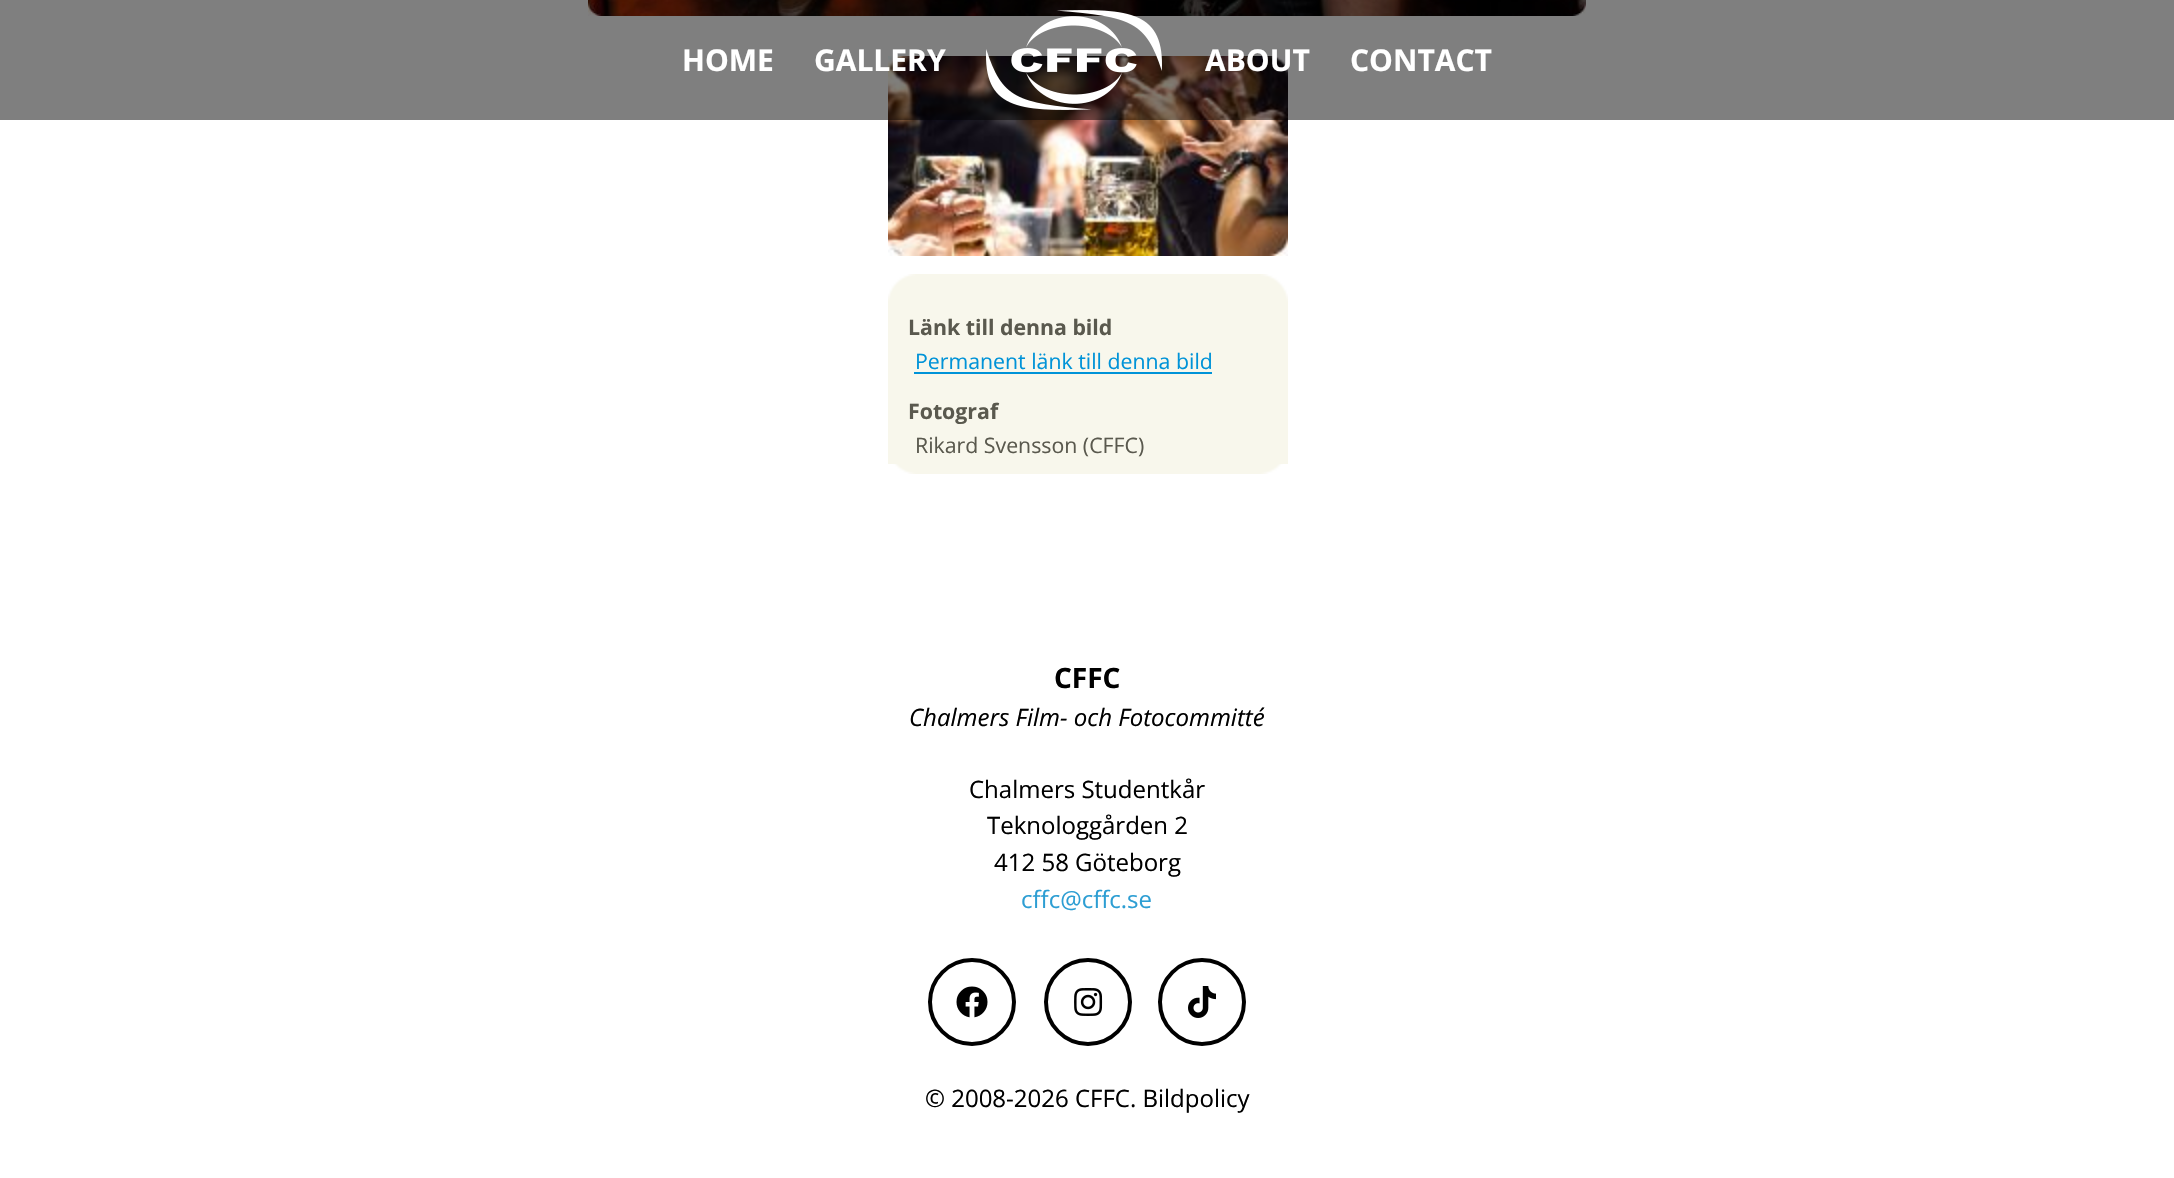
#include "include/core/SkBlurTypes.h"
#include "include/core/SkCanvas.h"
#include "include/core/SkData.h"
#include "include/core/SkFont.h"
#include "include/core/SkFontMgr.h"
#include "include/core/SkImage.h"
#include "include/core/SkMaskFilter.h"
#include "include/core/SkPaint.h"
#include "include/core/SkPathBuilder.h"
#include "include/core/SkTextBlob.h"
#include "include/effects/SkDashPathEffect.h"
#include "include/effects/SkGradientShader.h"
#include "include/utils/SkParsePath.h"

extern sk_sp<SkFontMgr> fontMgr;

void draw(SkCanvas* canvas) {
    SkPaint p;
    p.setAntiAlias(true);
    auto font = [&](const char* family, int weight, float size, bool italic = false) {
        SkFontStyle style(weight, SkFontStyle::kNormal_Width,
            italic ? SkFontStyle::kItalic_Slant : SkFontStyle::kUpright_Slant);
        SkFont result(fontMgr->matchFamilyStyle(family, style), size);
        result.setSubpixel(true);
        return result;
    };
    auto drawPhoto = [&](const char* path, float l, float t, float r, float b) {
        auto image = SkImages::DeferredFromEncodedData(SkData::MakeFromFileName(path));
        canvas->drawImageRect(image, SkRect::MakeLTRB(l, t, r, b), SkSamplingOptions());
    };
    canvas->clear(0xFFFFFFFF);
    drawPhoto("media/2.png", 588, 0, 1586, 16);
    drawPhoto("media/3.png", 888, 56, 1288, 256);
    p.setColor(0x80000000);
    canvas->drawRect(SkRect::MakeLTRB(0, 0, 2174, 120), p);
    auto font1 = font("Open Sans", 700, 30);
    p.setColor(0xFFFFFFFF);
    canvas->drawString("HOME", 682, 71, font1, p);
    canvas->drawString("GALLERY", 814, 71, font1, p);
    drawPhoto("media/1.png", 986, 10, 1162, 110);
    canvas->drawString("ABOUT", 1205, 71, font1, p);
    canvas->drawString("CONTACT", 1350, 71, font1, p);
    drawPhoto("media/4.png", 888, 464, 1288, 474);
    drawPhoto("media/5.png", 888, 274, 1288, 464);
    auto font2 = font("Open Sans", 700, 21.3f);
    p.setColor(0xFF5A594E);
    canvas->drawString("Länk till denna bild", 908, 335, font2, p);
    auto font3 = font("Open Sans", 400, 21.3f);
    p.setColor(0xFF0093D8);
    canvas->drawString("Permanent länk till denna bild", 915, 369, font3, p);
    canvas->drawRect(SkRect::MakeLTRB(914, 372, 1212, 374), p);
    p.setColor(0xFF5A594E);
    canvas->drawString("Fotograf", 908, 419, font2, p);
    canvas->drawString("Rikard Svensson (CFFC)", 915, 453, font3, p);
    auto font4 = font("Open Sans", 700, 28);
    p.setColor(0xFF000000);
    canvas->drawString("CFFC", 1054, 688, font4, p);
    auto font5 = font("Open Sans", 400, 24, true);
    canvas->drawString("Chalmers Film- och Fotocommitté", 909, 726, font5, p);
    auto font6 = font("Open Sans", 400, 24);
    {
        const struct { const char* s; float x, y; } items[] = {
            {"Chalmers Studentkår", 969, 798},
            {"Teknologgården 2", 987, 834},
            {"412 58 Göteborg", 994, 871},
        };
        for (auto [s, x, y] : items) {
            canvas->drawString(s, x, y, font6, p);
        }
    }
    p.setColor(0xFF2D9ED3);
    canvas->drawString("cffc@cffc.se", 1021, 908, font6, p);
    p.setStyle(SkPaint::kStroke_Style);
    p.setStrokeWidth(4);
    p.setColor(0xFF000000);
    canvas->drawCircle(972, 1002, 42, p);
    drawPhoto("media/6.png", 956, 986, 988, 1018);
    canvas->drawCircle(1088, 1002, 42, p);
    drawPhoto("media/7.png", 1074, 988, 1103, 1016);
    canvas->drawCircle(1202, 1002, 42, p);
    drawPhoto("media/8.png", 1188, 986, 1216, 1018);
    p.setStyle(SkPaint::kFill_Style);
    canvas->drawString("© 2008-2026 CFFC. Bildpolicy", 925, 1107, font6, p);
}
